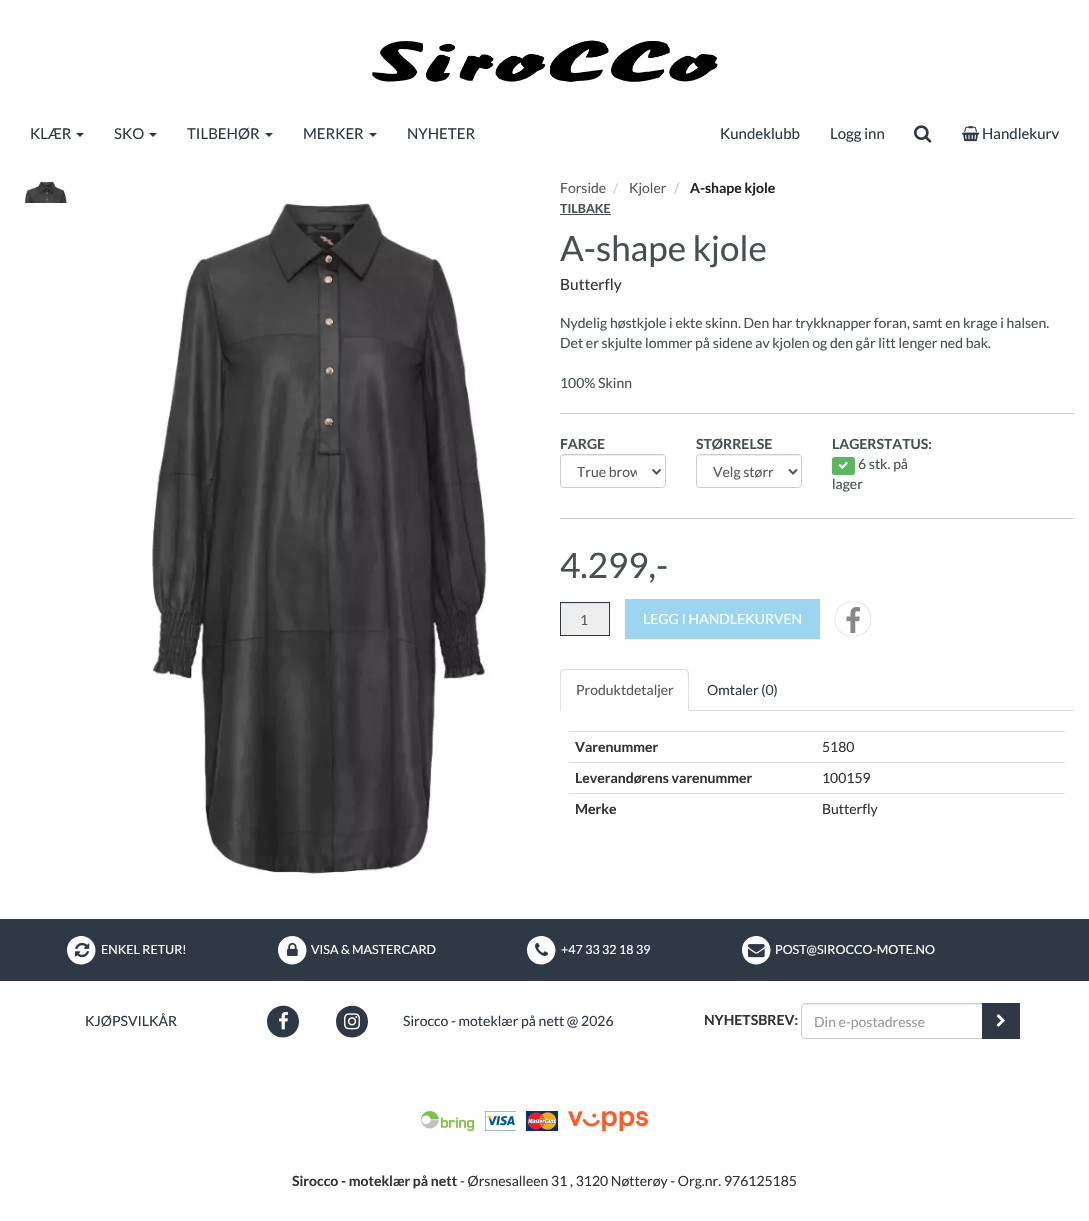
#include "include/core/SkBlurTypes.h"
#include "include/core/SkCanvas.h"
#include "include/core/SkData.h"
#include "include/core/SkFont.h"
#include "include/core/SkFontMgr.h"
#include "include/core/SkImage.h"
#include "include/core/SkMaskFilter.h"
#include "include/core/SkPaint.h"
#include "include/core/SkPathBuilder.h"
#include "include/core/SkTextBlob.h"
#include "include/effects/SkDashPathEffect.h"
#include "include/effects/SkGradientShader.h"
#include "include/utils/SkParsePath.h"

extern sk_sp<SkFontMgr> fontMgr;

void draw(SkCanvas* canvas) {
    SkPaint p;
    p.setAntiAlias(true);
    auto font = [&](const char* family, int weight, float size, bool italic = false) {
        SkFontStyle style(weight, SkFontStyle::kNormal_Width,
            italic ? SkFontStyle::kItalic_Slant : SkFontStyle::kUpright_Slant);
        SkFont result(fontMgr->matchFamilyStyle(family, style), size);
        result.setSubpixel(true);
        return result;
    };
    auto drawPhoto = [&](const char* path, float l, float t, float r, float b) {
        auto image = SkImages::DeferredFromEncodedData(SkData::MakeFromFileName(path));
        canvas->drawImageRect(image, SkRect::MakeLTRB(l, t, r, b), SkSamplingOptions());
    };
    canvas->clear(0xFFFFFFFF);
    drawPhoto("media/1.png", 372, 40, 718, 82);
    auto font1 = font("Lato", 400, 15);
    p.setColor(0xFF2F3945);
    canvas->drawString("KLÆR", 30, 139, font1, p);
    canvas->drawPath(SkPathBuilder().moveTo(76, 133).lineTo(84, 133).lineTo(80, 137).close().detach(), p);
    canvas->drawString("SKO", 114, 139, font1, p);
    canvas->drawPath(SkPathBuilder().moveTo(149, 133).lineTo(157, 133).lineTo(153, 137).close().detach(), p);
    canvas->drawString("TILBEHØR", 187, 139, font1, p);
    canvas->drawPath(SkPathBuilder().moveTo(265, 133).lineTo(273, 133).lineTo(269, 137).close().detach(), p);
    canvas->drawString("MERKER", 303, 139, font1, p);
    canvas->drawPath(SkPathBuilder().moveTo(369, 133).lineTo(377, 133).lineTo(373, 137).close().detach(), p);
    {
        const struct { const char* s; float x, y; } items[] = {
            {"NYHETER", 407, 139},
            {"Kundeklubb", 720, 139},
            {"Logg inn", 830, 139},
        };
        for (auto [s, x, y] : items) {
            canvas->drawString(s, x, y, font1, p);
        }
    }
    drawPhoto("media/2.png", 914, 125, 932, 143);
    drawPhoto("media/3.png", 962, 126, 980, 142);
    canvas->drawString("Handlekurv", 982, 139, font1, p);
    drawPhoto("media/4.png", 24, 181, 67, 203);
    drawPhoto("media/5.png", 152, 202, 489, 875);
    auto font2 = font("Lato", 400, 14);
    p.setColor(0xFF595959);
    canvas->drawString("Forside", 560, 193, font2, p);
    p.setColor(0xFFCCCCCC);
    canvas->drawString("/", 613, 193, font2, p);
    p.setColor(0xFF595959);
    canvas->drawString("Kjoler", 629, 193, font2, p);
    auto font3 = font("Lato", 700, 14);
    p.setColor(0xFFCCCCCC);
    canvas->drawString("/", 674, 193, font3, p);
    p.setColor(0xFF222222);
    canvas->drawString("A-shape kjole", 690, 193, font3, p);
    auto font4 = font("Lato", 700, 12.5f);
    p.setColor(0xFF465052);
    canvas->drawString("TILBAKE", 560, 213, font4, p);
    canvas->drawRect(SkRect::MakeLTRB(560, 214, 611, 215), p);
    auto font5 = font("Lato", 400, 35);
    canvas->drawString("A-shape kjole", 560, 261, font5, p);
    auto font6 = font("Lato", 400, 15.5f);
    p.setColor(0xFF333333);
    canvas->drawString("Butterfly", 560, 290, font6, p);
    p.setColor(0xFF465052);
    {
        const struct { const char* s; float x, y; } items[] = {
            {"Nydelig høstkjole i ekte skinn. Den har trykknapper foran, samt en krage i halsen.", 560, 328},
            {"Det er skjulte lommer på sidene av kjolen og den går litt lenger ned bak.", 560, 348},
            {"100% Skinn", 560, 388},
        };
        for (auto [s, x, y] : items) {
            canvas->drawString(s, x, y, font2, p);
        }
    }
    p.setColor(0xFFCCCCCC);
    canvas->drawRect(SkRect::MakeLTRB(560, 413, 1074, 414), p);
    p.setColor(0xFF465052);
    canvas->drawString("FARGE", 560, 449, font3, p);
    p.setColor(0xFFECECEC);
    canvas->drawPath(SkPathBuilder().moveTo(564, 456).lineTo(662, 456).cubicTo(664, 456, 665, 457, 665, 459).cubicTo(665, 451, 648, 455, 646, 455).lineTo(580, 455).cubicTo(578, 455, 561, 451, 561, 459).cubicTo(561, 457, 562, 456, 564, 456).close().detach(), p);
    p.setStyle(SkPaint::kStroke_Style);
    p.setStrokeWidth(1);
    p.setColor(0xFFCCCCCC);
    canvas->drawRoundRect(SkRect::MakeLTRB(560.5f, 454.5f, 665.5f, 487.5f), 3.5f, 3.5f, p);
    p.setStrokeWidth(2);
    p.setColor(0xFF555555);
    canvas->drawPath(SkPathBuilder().moveTo(652.5f, 469.5f).lineTo(656.5f, 473.5f).lineTo(660.5f, 469.5f).detach(), p);
    canvas->save();
    canvas->clipRect(SkRect::MakeLTRB(577, 462, 637, 481));
    p.setStyle(SkPaint::kFill_Style);
    p.setColor(0xFF595959);
    canvas->drawString("True brow", 577, 477, font2, p);
    canvas->restore();
    p.setColor(0xFF465052);
    canvas->drawString("STØRRELSE", 696, 449, font3, p);
    p.setColor(0xFFECECEC);
    canvas->drawPath(SkPathBuilder().moveTo(700, 456).lineTo(798, 456).cubicTo(800, 456, 801, 457, 801, 459).cubicTo(801, 451, 784, 455, 782, 455).lineTo(716, 455).cubicTo(714, 455, 697, 451, 697, 459).cubicTo(697, 457, 698, 456, 700, 456).close().detach(), p);
    p.setStyle(SkPaint::kStroke_Style);
    p.setStrokeWidth(1);
    p.setColor(0xFFCCCCCC);
    canvas->drawRoundRect(SkRect::MakeLTRB(696.5f, 454.5f, 801.5f, 487.5f), 3.5f, 3.5f, p);
    p.setStrokeWidth(2);
    p.setColor(0xFF555555);
    canvas->drawPath(SkPathBuilder().moveTo(789, 469.5f).lineTo(793, 473.5f).lineTo(797, 469.5f).detach(), p);
    p.setStyle(SkPaint::kFill_Style);
    p.setColor(0xFF595959);
    canvas->drawString("Velg størr", 713, 477, font2, p);
    p.setColor(0xFF465052);
    canvas->drawString("LAGERSTATUS:", 832, 449, font3, p);
    p.setColor(0xFF5CB85C);
    canvas->drawRoundRect(SkRect::MakeLTRB(832, 457, 855, 475), 2.5f, 2.5f, p);
    drawPhoto("media/6.png", 838, 462, 848, 469);
    p.setColor(0xFF465052);
    canvas->drawString("6 stk. på", 858, 469, font2, p);
    canvas->drawString("lager", 832, 489, font2, p);
    p.setColor(0xFFCCCCCC);
    canvas->drawRect(SkRect::MakeLTRB(560, 518, 1074, 519), p);
    p.setColor(0xFF465052);
    canvas->drawString("4.299,-", 560, 578, font5, p);
    p.setColor(0xFFEEEEEE);
    canvas->drawRect(SkRect::MakeLTRB(561, 604, 609, 635), p);
    p.setColor(0xFFDCDCDC);
    canvas->drawRect(SkRect::MakeLTRB(561, 603, 609, 604), p);
    p.setStyle(SkPaint::kStroke_Style);
    p.setStrokeWidth(1);
    p.setColor(0xFF2F3945);
    canvas->drawRect(SkRect::MakeLTRB(560.5f, 602.5f, 609.5f, 635.5f), p);
    p.setStyle(SkPaint::kFill_Style);
    p.setColor(0xFF595959);
    canvas->drawString("1", 580, 625, font2, p);
    p.setColor(0xFF9BD5EF);
    canvas->drawRect(SkRect::MakeLTRB(625, 599, 820, 639), p);
    p.setColor(0xFFFFFFFF);
    canvas->drawString("LEGG I HANDLEKURVEN", 643, 624, font2, p);
    canvas->save();
    canvas->clipPath(SkPathBuilder(SkPathFillType::kEvenOdd).moveTo(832, 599).lineTo(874, 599).lineTo(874, 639).lineTo(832, 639).close().moveTo(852, 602).lineTo(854, 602).cubicTo(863.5f, 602, 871, 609.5f, 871, 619).cubicTo(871, 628.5f, 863.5f, 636, 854, 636).lineTo(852, 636).cubicTo(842.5f, 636, 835, 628.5f, 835, 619).cubicTo(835, 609.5f, 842.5f, 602, 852, 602).close().detach(), true);
    p.setColor(0xFF888888);
    p.setMaskFilter(SkMaskFilter::MakeBlur(kNormal_SkBlurStyle, 0.5f));
    canvas->drawRoundRect(SkRect::MakeLTRB(835, 602, 871, 636), 17, 17, p);
    p.setMaskFilter(nullptr);
    canvas->restore();
    drawPhoto("media/7.png", 846, 607, 860, 633);
    p.setColor(0xFFDDDDDD);
    canvas->drawRect(SkRect::MakeLTRB(689, 710, 1074, 711), p);
    canvas->drawPath(SkPathBuilder().moveTo(564, 669).lineTo(561, 670).lineTo(562, 671).lineTo(564, 670).lineTo(685, 670).lineTo(687, 671).lineTo(688, 670).lineTo(685, 669).close().detach(), p);
    canvas->drawPath(SkPathBuilder().moveTo(689, 711).lineTo(689, 673).cubicTo(689, 672, 688, 671, 688, 670).lineTo(687, 671).cubicTo(689, 673, 688, 705, 688, 710).close().detach(), p);
    canvas->drawPath(SkPathBuilder().moveTo(560, 711).lineTo(561, 710).cubicTo(561, 705, 560, 673, 562, 671).lineTo(561, 670).lineTo(560, 673).close().detach(), p);
    p.setColor(0xFF595959);
    canvas->drawString("Produktdetaljer", 576, 695, font2, p);
    p.setColor(0xFF2F3945);
    canvas->drawString("Omtaler (0)", 707, 695, font2, p);
    p.setColor(0xFF333333);
    canvas->drawString("Varenummer", 575, 752, font3, p);
    p.setColor(0xFFDDDDDD);
    canvas->drawRect(SkRect::MakeLTRB(569, 731, 1065, 732), p);
    p.setColor(0xFF333333);
    canvas->drawString("5180", 822, 752, font2, p);
    canvas->drawString("Leverandørens varenummer", 575, 783, font3, p);
    p.setColor(0xFFDDDDDD);
    canvas->drawRect(SkRect::MakeLTRB(569, 762, 1065, 763), p);
    p.setColor(0xFF333333);
    canvas->drawString("100159", 822, 783, font2, p);
    canvas->drawString("Merke", 575, 814, font3, p);
    p.setColor(0xFFDDDDDD);
    canvas->drawRect(SkRect::MakeLTRB(569, 793, 1065, 794), p);
    p.setColor(0xFF333333);
    canvas->drawString("Butterfly", 822, 814, font2, p);
    p.setColor(0xFF2F3945);
    canvas->drawRect(SkRect::MakeLTRB(0, 919, 1089, 981), p);
    p.setColor(0xFFFFFFFF);
    canvas->drawPath(SkPathBuilder().moveTo(93.5f, 943).cubicTo(95, 945.5f, 95.5f, 948, 95.5f, 951).cubicTo(94.5f, 965, 76, 969.5f, 69, 957.5f).cubicTo(67.5f, 955, 67, 952, 67, 949).cubicTo(68, 935, 86.5f, 931, 93.5f, 943).close().detach(), p);
    drawPhoto("media/8.png", 75, 942, 90, 958);
    auto font7 = font("Lato", 400, 12.5f);
    canvas->drawString("ENKEL RETUR!", 101, 954, font7, p);
    canvas->drawPath(SkPathBuilder().moveTo(304.5f, 943).cubicTo(306, 945.5f, 306.5f, 948, 306.5f, 951).cubicTo(305.5f, 965, 287, 969.5f, 280, 957.5f).cubicTo(278.5f, 955, 278, 952, 278, 949).cubicTo(279, 935, 297.5f, 931, 304.5f, 943).close().detach(), p);
    drawPhoto("media/9.png", 287, 942, 298, 956);
    canvas->drawString("VISA & MASTERCARD", 311, 954, font7, p);
    canvas->drawPath(SkPathBuilder().moveTo(553.5f, 943).cubicTo(555, 945.5f, 555.5f, 948, 555.5f, 951).cubicTo(554.5f, 965, 536, 969.5f, 529, 957.5f).cubicTo(527.5f, 955, 527, 952, 527, 949).cubicTo(528, 935, 546.5f, 931, 553.5f, 943).close().detach(), p);
    drawPhoto("media/10.png", 535, 942, 549, 956);
    canvas->drawString("+47 33 32 18 39", 561, 954, font7, p);
    canvas->drawPath(SkPathBuilder().moveTo(768.5f, 943).cubicTo(770, 945.5f, 770.5f, 948, 770.5f, 951).cubicTo(769.5f, 965, 751, 969.5f, 744, 957.5f).cubicTo(742.5f, 955, 742, 952, 742, 949).cubicTo(743, 935, 761.5f, 931, 768.5f, 943).close().detach(), p);
    drawPhoto("media/11.png", 748, 944, 765, 958);
    canvas->drawString("POST@SIROCCO-MOTE.NO", 775, 954, font7, p);
    p.setColor(0xFF2F3945);
    canvas->drawString("KJØPSVILKÅR", 85, 1026, font2, p);
    canvas->drawPath(SkPathBuilder().moveTo(297, 1013.5f).cubicTo(298.5f, 1016.5f, 299, 1019.5f, 299, 1022.5f).cubicTo(298, 1038.5f, 277, 1043, 269, 1029.5f).cubicTo(267.5f, 1027, 267, 1024, 267, 1020.5f).cubicTo(268, 1005, 289, 1000, 297, 1013.5f).close().detach(), p);
    drawPhoto("media/12.png", 279, 1012, 288, 1030);
    canvas->drawPath(SkPathBuilder().moveTo(366, 1013.5f).cubicTo(367.5f, 1016.5f, 368, 1019.5f, 368, 1022.5f).cubicTo(367, 1038.5f, 346, 1043, 338, 1029.5f).cubicTo(336.5f, 1027, 336, 1024, 336, 1020.5f).cubicTo(337, 1005, 358, 1000, 366, 1013.5f).close().detach(), p);
    drawPhoto("media/13.png", 344, 1013, 360, 1030);
    canvas->drawString("Sirocco - moteklær på nett @ 2026", 403, 1026, font2, p);
    p.setColor(0xFF333333);
    canvas->drawString("NYHETSBREV:", 704, 1025, font3, p);
    p.setColor(0xFFECECEC);
    canvas->drawPath(SkPathBuilder().moveTo(805, 1005).lineTo(982, 1005).lineTo(982, 1004).lineTo(804, 1004).cubicTo(802, 1005, 802, 1006, 802, 1008).cubicTo(802, 1006, 803, 1005, 805, 1005).close().detach(), p);
    p.setStyle(SkPaint::kStroke_Style);
    p.setColor(0xFFCCCCCC);
    canvas->drawPath(SkPathBuilder().moveTo(805, 1003.5f).lineTo(982.5f, 1003.5f).lineTo(982.5f, 1038.5f).lineTo(805, 1038.5f).cubicTo(803, 1038.5f, 801.5f, 1037, 801.5f, 1035).lineTo(801.5f, 1007).cubicTo(801.5f, 1005, 803, 1003.5f, 805, 1003.5f).close().detach(), p);
    p.setStyle(SkPaint::kFill_Style);
    p.setColor(0xFF999999);
    canvas->drawString("Din e-postadresse", 814, 1027, font2, p);
    p.setColor(0xFF2F3945);
    canvas->drawRect(SkRect::MakeLTRB(982, 1003, 1020, 1039), p);
    drawPhoto("media/14.png", 996, 1014, 1005, 1027);
    drawPhoto("media/15.png", 421, 1111, 475, 1131);
    drawPhoto("media/16.png", 485, 1111, 516, 1131);
    drawPhoto("media/17.png", 526, 1111, 558, 1131);
    drawPhoto("media/18.png", 568, 1111, 648, 1131);
    p.setColor(0xFF333333);
    canvas->drawString("Sirocco - moteklær på nett", 292, 1186, font3, p);
    canvas->drawString("- Ørsnesalleen 31 , 3120 Nøtterøy - Org.nr. 976125185", 460, 1186, font2, p);
}
